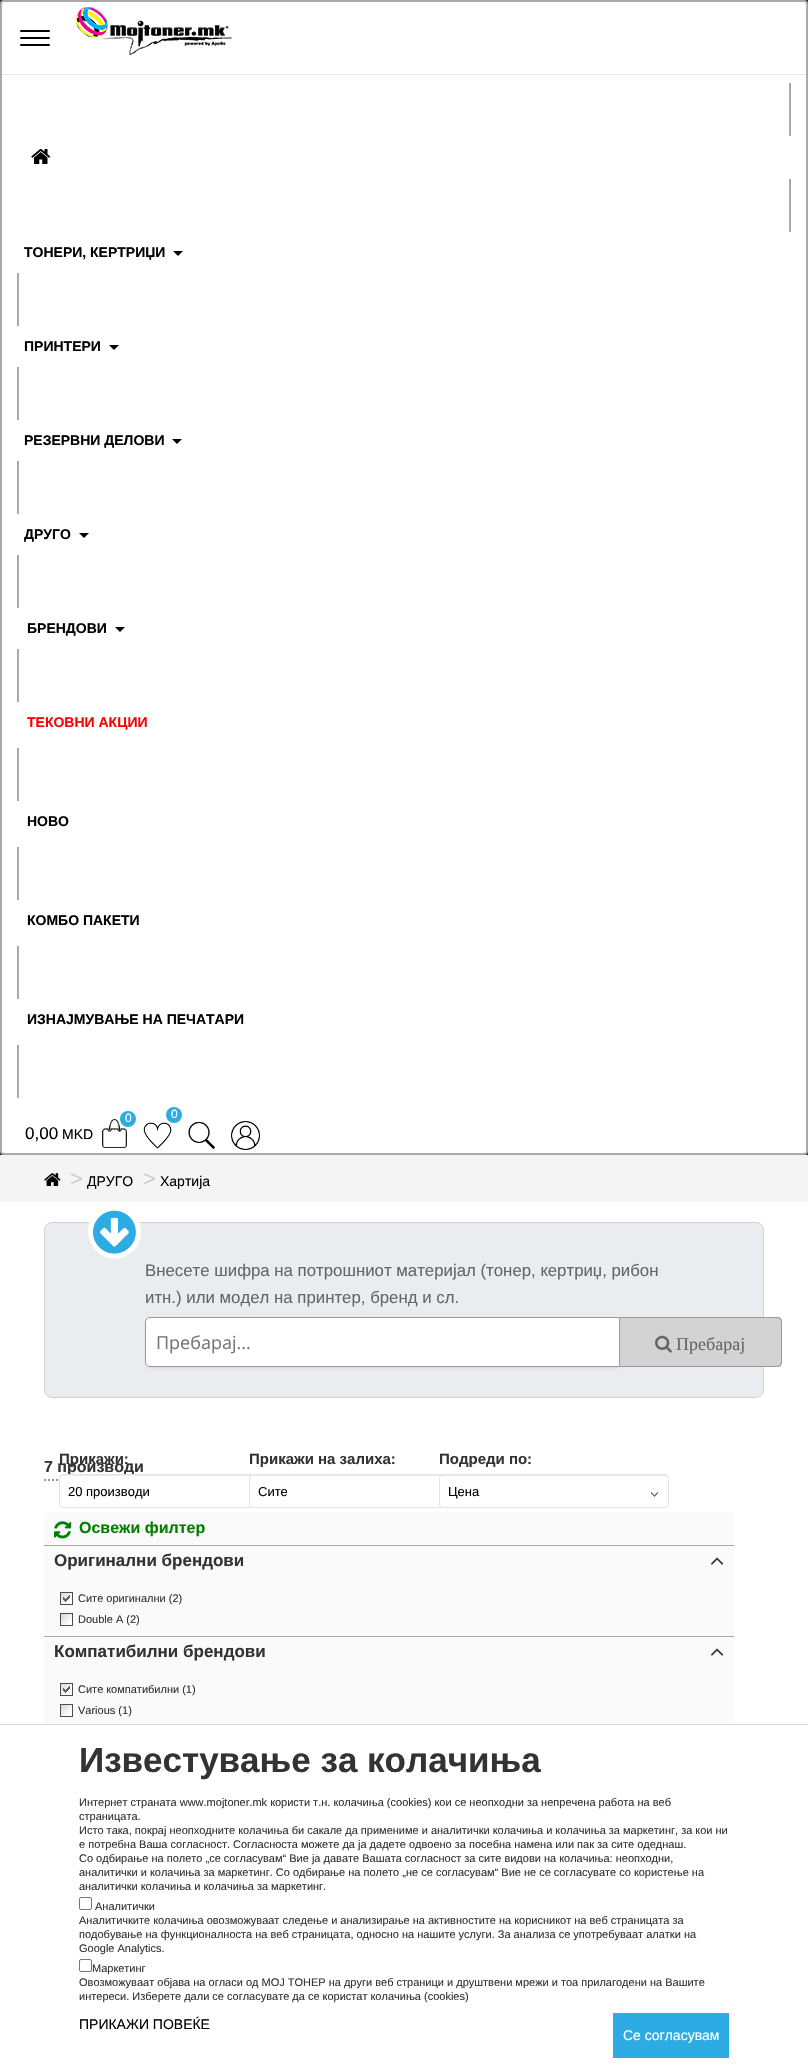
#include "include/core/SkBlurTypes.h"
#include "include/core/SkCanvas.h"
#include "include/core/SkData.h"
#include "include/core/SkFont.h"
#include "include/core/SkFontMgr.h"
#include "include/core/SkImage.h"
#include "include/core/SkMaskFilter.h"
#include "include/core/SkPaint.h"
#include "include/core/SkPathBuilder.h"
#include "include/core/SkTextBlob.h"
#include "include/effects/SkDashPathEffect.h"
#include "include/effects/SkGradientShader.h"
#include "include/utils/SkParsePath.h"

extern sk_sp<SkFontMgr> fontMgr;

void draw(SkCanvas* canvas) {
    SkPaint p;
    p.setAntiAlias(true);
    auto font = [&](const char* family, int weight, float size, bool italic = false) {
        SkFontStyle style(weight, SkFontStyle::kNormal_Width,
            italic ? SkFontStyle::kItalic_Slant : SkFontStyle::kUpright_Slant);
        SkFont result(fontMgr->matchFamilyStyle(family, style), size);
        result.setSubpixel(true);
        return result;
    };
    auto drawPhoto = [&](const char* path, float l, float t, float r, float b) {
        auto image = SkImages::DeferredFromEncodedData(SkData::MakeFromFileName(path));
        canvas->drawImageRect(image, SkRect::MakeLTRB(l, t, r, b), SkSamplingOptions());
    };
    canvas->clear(0xFF212121);
    p.setColor(0xFFFFFFFF);
    canvas->drawRoundRect(SkRect::MakeLTRB(1, 1, 807, 1154), 3, 3, p);
    p.setStyle(SkPaint::kStroke_Style);
    p.setStrokeWidth(2);
    p.setColor(0xFFA9A9A9);
    canvas->drawRoundRect(SkRect::MakeLTRB(1, 1, 807, 1154), 3, 3, p);
    p.setStyle(SkPaint::kFill_Style);
    p.setColor(0xFF000000);
    canvas->drawRoundRect(SkRect::MakeLTRB(20, 30, 50, 32), 1, 1, p);
    canvas->drawRoundRect(SkRect::MakeLTRB(20, 37, 50, 39), 1, 1, p);
    canvas->drawRoundRect(SkRect::MakeLTRB(20, 44, 50, 46), 1, 1, p);
    drawPhoto("media/1.png", 76, 7, 232, 55);
    p.setColor(0xFFE7E7E7);
    canvas->drawRect(SkRect::MakeLTRB(2, 74, 806, 75), p);
    p.setColor(0xFFA9A9A9);
    canvas->drawRect(SkRect::MakeLTRB(789, 83, 791, 136), p);
    drawPhoto("media/2.png", 31, 149, 51, 164);
    canvas->drawRect(SkRect::MakeLTRB(789, 179, 791, 232), p);
    auto font1 = font("Liberation Sans", 700, 14);
    p.setColor(0xFF000000);
    canvas->drawString("ТОНЕРИ, КЕРТРИЏИ", 24, 257, font1, p);
    canvas->drawPath(SkPathBuilder().moveTo(173, 251).lineTo(183, 251).lineTo(178, 256).close().detach(), p);
    p.setColor(0xFFA9A9A9);
    canvas->drawRect(SkRect::MakeLTRB(17, 273, 19, 326), p);
    p.setColor(0xFF000000);
    canvas->drawString("ПРИНТЕРИ", 24, 351, font1, p);
    canvas->drawPath(SkPathBuilder().moveTo(109, 345).lineTo(119, 345).lineTo(114, 350).close().detach(), p);
    p.setColor(0xFFA9A9A9);
    canvas->drawRect(SkRect::MakeLTRB(17, 367, 19, 420), p);
    p.setColor(0xFF000000);
    canvas->drawString("РЕЗЕРВНИ ДЕЛОВИ", 24, 445, font1, p);
    canvas->drawPath(SkPathBuilder().moveTo(172, 439).lineTo(182, 439).lineTo(177, 444).close().detach(), p);
    p.setColor(0xFFA9A9A9);
    canvas->drawRect(SkRect::MakeLTRB(17, 461, 19, 514), p);
    p.setColor(0xFF000000);
    canvas->drawString("ДРУГО", 24, 539, font1, p);
    canvas->drawPath(SkPathBuilder().moveTo(79, 533).lineTo(89, 533).lineTo(84, 538).close().detach(), p);
    p.setColor(0xFFA9A9A9);
    canvas->drawRect(SkRect::MakeLTRB(17, 555, 19, 608), p);
    p.setColor(0xFF000000);
    canvas->drawString("БРЕНДОВИ", 27, 633, font1, p);
    canvas->drawPath(SkPathBuilder().moveTo(115, 627).lineTo(125, 627).lineTo(120, 632).close().detach(), p);
    p.setColor(0xFFA9A9A9);
    canvas->drawRect(SkRect::MakeLTRB(17, 649, 19, 702), p);
    p.setColor(0xFFFF0000);
    canvas->drawString("ТЕКОВНИ АКЦИИ", 27, 727, font1, p);
    p.setColor(0xFFA9A9A9);
    canvas->drawRect(SkRect::MakeLTRB(17, 748, 19, 801), p);
    p.setColor(0xFF000000);
    canvas->drawString("НОВО", 27, 826, font1, p);
    p.setColor(0xFFA9A9A9);
    canvas->drawRect(SkRect::MakeLTRB(17, 847, 19, 900), p);
    p.setColor(0xFF000000);
    canvas->drawString("КОМБО ПАКЕТИ", 27, 925, font1, p);
    p.setColor(0xFFA9A9A9);
    canvas->drawRect(SkRect::MakeLTRB(17, 946, 19, 999), p);
    p.setColor(0xFF000000);
    canvas->drawString("ИЗНАЈМУВАЊЕ НА ПЕЧАТАРИ", 27, 1024, font1, p);
    p.setColor(0xFFA9A9A9);
    canvas->drawRect(SkRect::MakeLTRB(17, 1045, 19, 1098), p);
    drawPhoto("media/3.png", 102, 1119, 127, 1148);
    p.setColor(0xFF2DACE3);
    canvas->drawCircle(128, 1119, 8, p);
    auto font2 = font("Liberation Sans", 400, 12);
    p.setColor(0xFFFFFFFF);
    canvas->drawString("0", 125, 1122, font2, p);
    auto font3 = font("Liberation Sans", 400, 17);
    p.setColor(0xFF000000);
    canvas->drawString("0,00", 25, 1139, font3, p);
    auto font4 = font("Liberation Sans", 400, 14);
    canvas->drawString("MKD", 62, 1139, font4, p);
    drawPhoto("media/4.png", 143, 1122, 172, 1149);
    p.setColor(0xFF2DACE3);
    canvas->drawCircle(174, 1115, 8, p);
    p.setColor(0xFFFFFFFF);
    canvas->drawString("0", 171, 1118, font2, p);
    drawPhoto("media/5.png", 188, 1122, 215, 1149);
    drawPhoto("media/6.png", 231, 1121, 260, 1150);
    canvas->drawRect(SkRect::MakeLTRB(0, 1202, 808, 1724), p);
    p.setColor(0xFFF4F4F4);
    canvas->drawRect(SkRect::MakeLTRB(0, 1155, 808, 1202), p);
    drawPhoto("media/7.png", 44, 1173, 61, 1186);
    auto font5 = font("Liberation Sans", 400, 22);
    p.setColor(0xFFCCCCCC);
    canvas->drawString(">", 70, 1186, font5, p);
    p.setColor(0xFF000000);
    canvas->drawString("ДРУГО", 87, 1186, font4, p);
    p.setColor(0xFFCCCCCC);
    canvas->drawString(">", 143, 1186, font5, p);
    p.setColor(0xFF000000);
    canvas->drawString("Хартија", 160, 1186, font4, p);
    p.setColor(0xFFEBECF0);
    canvas->drawRoundRect(SkRect::MakeLTRB(44.5f, 1222.5f, 763.5f, 1397.5f), 7.5f, 7.5f, p);
    p.setStyle(SkPaint::kStroke_Style);
    p.setStrokeWidth(1);
    p.setColor(0xFFD3D3D3);
    canvas->drawRoundRect(SkRect::MakeLTRB(44.5f, 1222.5f, 763.5f, 1397.5f), 7.5f, 7.5f, p);
    p.setStyle(SkPaint::kFill_Style);
    p.setColor(0xFFFFFFFF);
    canvas->drawPath(SkPathBuilder().moveTo(138, 1219).cubicTo(140, 1223, 141, 1228, 141, 1234).cubicTo(139, 1260, 105, 1268, 92, 1245).cubicTo(89, 1241, 88, 1235, 88, 1230).cubicTo(90, 1204, 125, 1196, 138, 1219).close().detach(), p);
    drawPhoto("media/8.png", 93, 1210, 136, 1254);
    auto font6 = font("Liberation Sans", 400, 16.8f);
    p.setColor(0xFF666666);
    canvas->drawString("Внесете шифра на потрошниот материјал (тонер, кертриџ, рибон", 145, 1276, font6, p);
    canvas->drawString("итн.) или модел на принтер, бренд и сл.", 145, 1303, font6, p);
    p.setColor(0x1A000000);
    p.setMaskFilter(SkMaskFilter::MakeBlur(kNormal_SkBlurStyle, 1.5f));
    canvas->drawRoundRect(SkRect::MakeLTRB(146, 1318, 621, 1368), 5, 5, p);
    p.setMaskFilter(nullptr);
    p.setColor(0xFFFFFFFF);
    canvas->drawPath(SkPathBuilder().moveTo(150, 1317.5f).lineTo(619.5f, 1317.5f).lineTo(619.5f, 1366.5f).lineTo(150, 1366.5f).cubicTo(147.5f, 1366.5f, 145.5f, 1364.5f, 145.5f, 1362).lineTo(145.5f, 1322).cubicTo(145.5f, 1319.5f, 147.5f, 1317.5f, 150, 1317.5f).close().detach(), p);
    p.setStyle(SkPaint::kStroke_Style);
    p.setColor(0xFF999999);
    canvas->drawPath(SkPathBuilder().moveTo(150, 1317.5f).lineTo(619.5f, 1317.5f).lineTo(619.5f, 1366.5f).lineTo(150, 1366.5f).cubicTo(147.5f, 1366.5f, 145.5f, 1364.5f, 145.5f, 1362).lineTo(145.5f, 1322).cubicTo(145.5f, 1319.5f, 147.5f, 1317.5f, 150, 1317.5f).close().detach(), p);
    auto font7 = font("Open Sans", 400, 18);
    p.setStyle(SkPaint::kFill_Style);
    p.setColor(0xFF757575);
    canvas->drawString("Пребарај...", 156, 1349, font7, p);
    p.setColor(0xFFD3D3D3);
    canvas->drawPath(SkPathBuilder().moveTo(620, 1317).lineTo(777, 1317).cubicTo(780, 1317, 782, 1319, 782, 1322).lineTo(782, 1362).cubicTo(782, 1365, 780, 1367, 777, 1367).lineTo(620, 1367).close().detach(), p);
    p.setColor(0xFF999999);
    canvas->drawPath(SkPathBuilder(SkPathFillType::kEvenOdd).moveTo(620, 1317).lineTo(777, 1317).cubicTo(780, 1317, 782, 1319, 782, 1322).lineTo(782, 1362).cubicTo(782, 1365, 780, 1367, 777, 1367).lineTo(620, 1367).close().moveTo(620, 1318).lineTo(777, 1318).cubicTo(779, 1318, 781, 1320, 781, 1322).lineTo(781, 1362).cubicTo(781, 1364, 779, 1366, 777, 1366).lineTo(620, 1366).close().detach(), p);
    drawPhoto("media/9.png", 655, 1335, 672, 1353);
    auto font8 = font("Liberation Serif", 400, 18);
    p.setColor(0xFF666666);
    canvas->drawString("Пребарај", 676, 1350, font8, p);
    auto font9 = font("Liberation Sans", 700, 16);
    p.setColor(0xFF333333);
    canvas->drawString("7 производи", 44, 1472, font9, p);
    auto font10 = font("Liberation Sans", 700, 15);
    canvas->drawString("Прикажи:", 59, 1464, font10, p);
    p.setStyle(SkPaint::kStroke_Style);
    p.setStrokeWidth(2);
    p.setColor(0xFF999999);
    p.setPathEffect(SkDashPathEffect::Make({{2, 2}}, 0));
    canvas->drawPath(SkPathBuilder().moveTo(44, 1480).lineTo(194, 1480).detach(), p);
    p.setPathEffect(nullptr);
    p.setStyle(SkPaint::kFill_Style);
    p.setColor(0xFFFFFFFF);
    canvas->drawRoundRect(SkRect::MakeLTRB(59, 1474, 289, 1508), 4, 4, p);
    p.setColor(0xFFECECEC);
    canvas->drawPath(SkPathBuilder().moveTo(63, 1476).lineTo(285, 1476).cubicTo(287, 1476, 288, 1477, 288, 1479).lineTo(288, 1478).cubicTo(288, 1476, 287, 1475, 285, 1475).lineTo(63, 1475).cubicTo(61, 1475, 60, 1476, 60, 1478).lineTo(60, 1479).cubicTo(60, 1477, 61, 1476, 63, 1476).close().detach(), p);
    p.setStyle(SkPaint::kStroke_Style);
    p.setStrokeWidth(1);
    p.setColor(0xFFE3E3E3);
    canvas->drawRoundRect(SkRect::MakeLTRB(59.5f, 1474.5f, 288.5f, 1507.5f), 3.5f, 3.5f, p);
    auto font11 = font("Liberation Sans", 400, 13);
    p.setStyle(SkPaint::kFill_Style);
    p.setColor(0xFF000000);
    canvas->drawString("20 производи", 68, 1496, font11, p);
    p.setColor(0xFF333333);
    canvas->drawString("Прикажи на залиха:", 249, 1464, font10, p);
    p.setColor(0xFFFFFFFF);
    canvas->drawRoundRect(SkRect::MakeLTRB(249, 1474, 479, 1508), 4, 4, p);
    p.setColor(0xFFECECEC);
    canvas->drawPath(SkPathBuilder().moveTo(253, 1476).lineTo(475, 1476).cubicTo(477, 1476, 478, 1477, 478, 1479).lineTo(478, 1478).cubicTo(478, 1476, 477, 1475, 475, 1475).lineTo(253, 1475).cubicTo(251, 1475, 250, 1476, 250, 1478).lineTo(250, 1479).cubicTo(250, 1477, 251, 1476, 253, 1476).close().detach(), p);
    p.setStyle(SkPaint::kStroke_Style);
    p.setColor(0xFFE3E3E3);
    canvas->drawRoundRect(SkRect::MakeLTRB(249.5f, 1474.5f, 478.5f, 1507.5f), 3.5f, 3.5f, p);
    p.setStyle(SkPaint::kFill_Style);
    p.setColor(0xFF000000);
    canvas->drawString("Сите", 258, 1496, font11, p);
    p.setColor(0xFF333333);
    canvas->drawString("Подреди по:", 439, 1464, font10, p);
    p.setColor(0xFFFFFFFF);
    canvas->drawRoundRect(SkRect::MakeLTRB(439, 1474, 669, 1508), 4, 4, p);
    p.setColor(0xFFECECEC);
    canvas->drawPath(SkPathBuilder().moveTo(443, 1476).lineTo(665, 1476).cubicTo(667, 1476, 668, 1477, 668, 1479).lineTo(668, 1478).cubicTo(668, 1476, 667, 1475, 665, 1475).lineTo(443, 1475).cubicTo(441, 1475, 440, 1476, 440, 1478).lineTo(440, 1479).cubicTo(440, 1477, 441, 1476, 443, 1476).close().detach(), p);
    p.setStyle(SkPaint::kStroke_Style);
    p.setColor(0xFFE3E3E3);
    canvas->drawRoundRect(SkRect::MakeLTRB(439.5f, 1474.5f, 668.5f, 1507.5f), 3.5f, 3.5f, p);
    p.setStyle(SkPaint::kFill_Style);
    p.setColor(0xFF000000);
    canvas->drawString("Цена", 448, 1496, font11, p);
    drawPhoto("media/10.png", 651, 1492, 658, 1497);
    p.setColor(0xFFFAFAFA);
    canvas->drawRect(SkRect::MakeLTRB(44, 1513, 734, 1724), p);
    drawPhoto("media/11.png", 54, 1521, 72, 1539);
    p.setColor(0xFF008000);
    canvas->drawString("Освежи филтер", 79, 1533, font9, p);
    p.setColor(0xFFA9A9A9);
    canvas->drawRect(SkRect::MakeLTRB(44, 1545, 734, 1546), p);
    auto font12 = font("Liberation Sans", 700, 17);
    p.setColor(0xFF333333);
    canvas->drawString("Оригинални брендови", 54, 1566, font12, p);
    drawPhoto("media/12.png", 711, 1557, 724, 1565);
    drawPhoto("media/13.png", 60, 1592, 73, 1605);
    auto font13 = font("Liberation Sans", 400, 11);
    canvas->drawString("Сите оригинални (2)", 78, 1602, font13, p);
    drawPhoto("media/14.png", 60, 1613, 73, 1626);
    canvas->drawString("Double A (2)", 78, 1623, font13, p);
    p.setColor(0xFFA9A9A9);
    canvas->drawRect(SkRect::MakeLTRB(44, 1636, 734, 1637), p);
    p.setColor(0xFF333333);
    canvas->drawString("Компатибилни брендови", 54, 1657, font12, p);
    drawPhoto("media/12.png", 711, 1648, 724, 1656);
    drawPhoto("media/13.png", 60, 1683, 73, 1696);
    canvas->drawString("Сите компатибилни (1)", 78, 1693, font13, p);
    drawPhoto("media/14.png", 60, 1704, 73, 1717);
    canvas->drawString("Various (1)", 78, 1714, font13, p);
    p.setStyle(SkPaint::kStroke_Style);
    p.setColor(0xFFD9D9D9);
    canvas->drawRect(SkRect::MakeLTRB(-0.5f, 1724.5f, 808.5f, 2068.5f), p);
    p.setStyle(SkPaint::kFill_Style);
    p.setColor(0xFFFFFFFF);
    canvas->drawRect(SkRect::MakeLTRB(0, 1725, 808, 2068), p);
    auto font14 = font("Liberation Sans", 700, 35);
    p.setColor(0xFF333333);
    canvas->drawString("Известување за колачиња", 79, 1772, font14, p);
    {
        const struct { const char* s; float x, y; } items[] = {
            {"Интернет страната www.mojtoner.mk користи т.н. колачиња (cookies) кои се неопходни за непречена работа на веб", 79, 1806},
            {"страницата.", 79, 1820},
            {"Исто така, покрај неопходните колачиња би сакале да примениме и аналитички колачиња и колачиња за маркетинг, за кои ни", 79, 1834},
            {"е потребна Ваша согласност. Согласноста можете да ја дадете одвоено за посебна намена или пак за сите одеднаш.", 79, 1848},
            {"Со одбирање на полето „се согласувам“ Вие ја давате Вашата согласност за сите видови на колачиња: неопходни,", 79, 1862},
            {"аналитички и колачиња за маркетинг. Со одбирање на полето „не се согласувам“ Вие не се согласувате со користење на", 79, 1876},
            {"аналитички колачиња и колачиња за маркетинг.", 79, 1890},
        };
        for (auto [s, x, y] : items) {
            canvas->drawString(s, x, y, font13, p);
        }
    }
    p.setStyle(SkPaint::kStroke_Style);
    p.setColor(0xFF767676);
    canvas->drawRoundRect(SkRect::MakeLTRB(79.5f, 1897.5f, 91.5f, 1909.5f), 1.5f, 1.5f, p);
    p.setStyle(SkPaint::kFill_Style);
    p.setColor(0xFF333333);
    {
        const struct { const char* s; float x, y; } items[] = {
            {"Аналитички", 95, 1910},
            {"Аналитичките колачиња овозможуваат следење и анализирање на активностите на корисникот на веб страницата за", 79, 1924},
            {"подобување на функционалноста на веб страницата, односно на нашите услуги. За анализа се употребуваат алатки на", 79, 1938},
            {"Google Analytics.", 79, 1952},
        };
        for (auto [s, x, y] : items) {
            canvas->drawString(s, x, y, font13, p);
        }
    }
    p.setStyle(SkPaint::kStroke_Style);
    p.setColor(0xFF767676);
    canvas->drawRoundRect(SkRect::MakeLTRB(79.5f, 1959.5f, 91.5f, 1971.5f), 1.5f, 1.5f, p);
    p.setStyle(SkPaint::kFill_Style);
    p.setColor(0xFF333333);
    {
        const struct { const char* s; float x, y; } items[] = {
            {"Маркетинг", 92, 1972},
            {"Овозможуваат објава на огласи од МОЈ ТОНЕР на други веб страници и друштвени мрежи и тоа прилагодени на Вашите", 79, 1986},
            {"интереси. Изберете дали се согласувате да се користат колачиња (cookies)", 79, 2000},
        };
        for (auto [s, x, y] : items) {
            canvas->drawString(s, x, y, font13, p);
        }
    }
    p.setColor(0xFF000000);
    canvas->drawString("ПРИКАЖИ ПОВЕЌЕ", 79, 2029, font4, p);
    p.setColor(0xFF2DACE3);
    canvas->drawRect(SkRect::MakeLTRB(613, 2013, 729, 2058), p);
    p.setColor(0xFFFFFFFF);
    canvas->drawString("Се согласувам", 623, 2040, font4, p);
}
